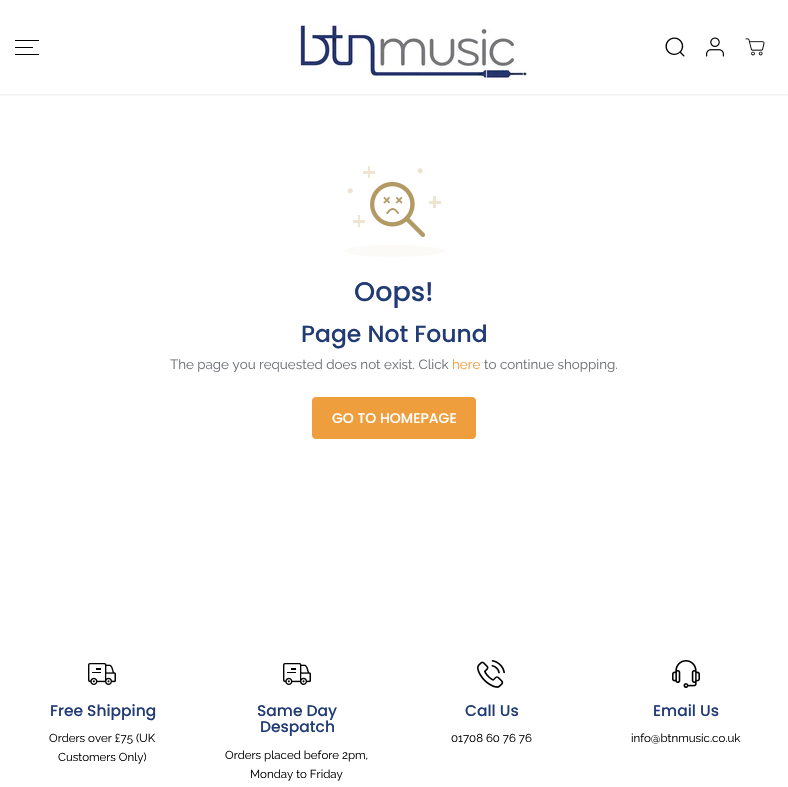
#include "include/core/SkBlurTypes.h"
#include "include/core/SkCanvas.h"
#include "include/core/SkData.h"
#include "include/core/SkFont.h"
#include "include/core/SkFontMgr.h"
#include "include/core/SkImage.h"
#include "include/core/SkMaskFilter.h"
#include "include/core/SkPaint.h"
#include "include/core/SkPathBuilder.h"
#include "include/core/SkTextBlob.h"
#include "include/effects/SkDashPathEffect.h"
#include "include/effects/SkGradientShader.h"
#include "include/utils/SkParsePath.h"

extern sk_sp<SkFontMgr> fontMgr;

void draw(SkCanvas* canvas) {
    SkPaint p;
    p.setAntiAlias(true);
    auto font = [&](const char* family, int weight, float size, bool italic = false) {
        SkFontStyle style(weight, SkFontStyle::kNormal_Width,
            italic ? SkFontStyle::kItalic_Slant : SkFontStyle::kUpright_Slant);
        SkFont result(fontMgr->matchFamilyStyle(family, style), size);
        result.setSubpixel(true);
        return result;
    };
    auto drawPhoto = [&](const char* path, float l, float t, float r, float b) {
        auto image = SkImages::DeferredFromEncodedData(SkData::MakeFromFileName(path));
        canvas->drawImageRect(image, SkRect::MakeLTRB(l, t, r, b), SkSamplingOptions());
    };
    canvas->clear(0xFFFFFFFF);
    canvas->save();
    canvas->clipRect(SkRect::MakeLTRB(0, 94, 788, 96));
    p.setColor(0x0D000000);
    p.setMaskFilter(SkMaskFilter::MakeBlur(kNormal_SkBlurStyle, 1));
    canvas->drawRect(SkRect::MakeLTRB(0, 2, 788, 96), p);
    p.setMaskFilter(nullptr);
    canvas->restore();
    {
        const struct { float l, t, r, b; SkColor color; } items[] = {
            {15, 47, 33, 48, 0xFF000000},
            {15, 40, 39, 41, 0xFF000000},
            {15, 54, 39, 55, 0xFF000000},
        };
        for (auto [l, t, r, b, color] : items) {
            p.setColor(color);
            canvas->drawRect(SkRect::MakeLTRB(l, t, r, b), p);
        }
    }
    drawPhoto("media/1.png", 298, 25, 528, 80);
    drawPhoto("media/2.png", 665, 37, 685, 57);
    drawPhoto("media/3.png", 706, 37, 724, 57);
    drawPhoto("media/4.png", 745, 38, 765, 56);
    drawPhoto("media/5.png", 344, 166, 444, 257);
    auto font1 = font("Poppins", 500, 27);
    p.setColor(0xFF213B74);
    canvas->drawString("Oops!", 354, 301, font1, p);
    auto font2 = font("Poppins", 500, 23.5f);
    canvas->drawString("Page Not Found", 301, 342, font2, p);
    auto font3 = font("Raleway", 400, 13.4f);
    p.setColor(0xFF6C7075);
    canvas->drawString("The page you requested does not exist. Click", 170, 369, font3, p);
    p.setColor(0xFFEE9E3D);
    canvas->drawString("here", 452, 369, font3, p);
    p.setColor(0xFF6C7075);
    canvas->drawString("to continue shopping.", 484, 369, font3, p);
    p.setColor(0xFFEE9E3D);
    canvas->drawRoundRect(SkRect::MakeLTRB(311.5f, 396.5f, 476.5f, 439.5f), 4.5f, 4.5f, p);
    p.setStyle(SkPaint::kStroke_Style);
    p.setStrokeWidth(1);
    p.setColor(0xFFFFFFFF);
    canvas->drawRoundRect(SkRect::MakeLTRB(311.5f, 396.5f, 476.5f, 439.5f), 4.5f, 4.5f, p);
    auto font4 = font("Poppins", 500, 14);
    p.setStyle(SkPaint::kFill_Style);
    canvas->drawString("GO TO HOMEPAGE", 332, 423, font4, p);
    drawPhoto("media/6.png", 88, 663, 116, 685);
    auto font5 = font("Poppins", 500, 15.5f);
    p.setColor(0xFF213B74);
    canvas->drawString("Free Shipping", 50, 716, font5, p);
    auto font6 = font("Raleway", 400, 11.5f);
    p.setColor(0xFF000000);
    canvas->drawString("Orders over £75 (UK", 49, 742, font6, p);
    canvas->drawString("Customers Only)", 58, 761, font6, p);
    drawPhoto("media/6.png", 283, 663, 311, 685);
    p.setColor(0xFF213B74);
    canvas->drawString("Same Day", 257, 716, font5, p);
    canvas->drawString("Despatch", 260, 732, font5, p);
    p.setColor(0xFF000000);
    canvas->drawString("Orders placed before 2pm,", 225, 759, font6, p);
    canvas->drawString("Monday to Friday", 250, 778, font6, p);
    drawPhoto("media/7.png", 477, 660, 505, 688);
    p.setColor(0xFF213B74);
    canvas->drawString("Call Us", 465, 716, font5, p);
    p.setColor(0xFF000000);
    canvas->drawString("01708 60 76 76", 451, 742, font6, p);
    drawPhoto("media/8.png", 672, 660, 700, 688);
    p.setColor(0xFF213B74);
    canvas->drawString("Email Us", 653, 716, font5, p);
    p.setColor(0xFF000000);
    canvas->drawString("info@btnmusic.co.uk", 631, 742, font6, p);
}
